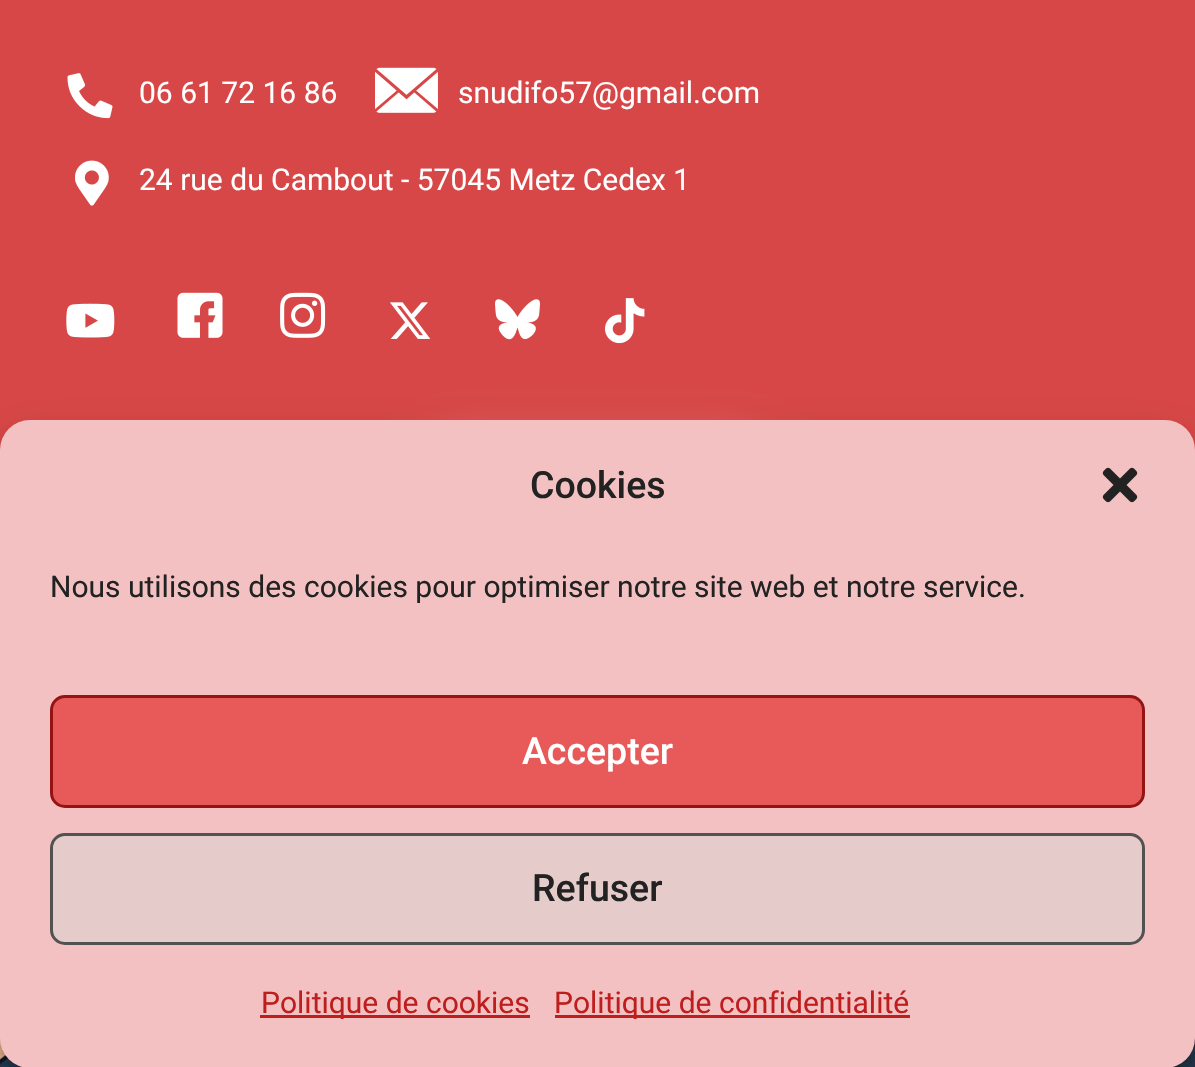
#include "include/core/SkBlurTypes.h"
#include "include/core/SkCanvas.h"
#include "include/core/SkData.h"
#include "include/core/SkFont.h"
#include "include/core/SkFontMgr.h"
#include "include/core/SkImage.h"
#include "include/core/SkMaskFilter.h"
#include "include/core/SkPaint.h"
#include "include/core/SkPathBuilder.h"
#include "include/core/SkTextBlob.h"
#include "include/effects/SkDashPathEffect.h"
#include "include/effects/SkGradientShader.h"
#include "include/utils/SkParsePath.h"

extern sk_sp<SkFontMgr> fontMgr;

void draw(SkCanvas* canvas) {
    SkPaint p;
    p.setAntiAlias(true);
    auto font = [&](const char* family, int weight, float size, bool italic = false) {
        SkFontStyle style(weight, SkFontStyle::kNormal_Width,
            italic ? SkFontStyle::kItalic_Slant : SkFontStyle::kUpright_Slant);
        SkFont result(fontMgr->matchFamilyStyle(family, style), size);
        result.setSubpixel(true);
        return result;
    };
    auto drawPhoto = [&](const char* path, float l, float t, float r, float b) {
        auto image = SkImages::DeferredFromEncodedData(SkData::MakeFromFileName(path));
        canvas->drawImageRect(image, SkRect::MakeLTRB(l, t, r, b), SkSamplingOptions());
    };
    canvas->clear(0xFFD84747);
    drawPhoto("media/1.png", 67, 73, 113, 119);
    auto font1 = font("Roboto", 400, 30);
    p.setColor(0xFFFFFFFF);
    canvas->drawString("06 61 72 16 86", 139, 103, font1, p);
    drawPhoto("media/2.png", 375, 67, 438, 113);
    canvas->drawString("snudifo57@gmail.com", 458, 103, font1, p);
    drawPhoto("media/3.png", 75, 160, 109, 206);
    canvas->drawString("24 rue du Cambout - 57045 Metz Cedex 1", 139, 190, font1, p);
    drawPhoto("media/4.png", 66, 303, 115, 338);
    drawPhoto("media/5.png", 177, 292, 223, 338);
    drawPhoto("media/6.png", 280, 292, 326, 338);
    drawPhoto("media/7.png", 390, 302, 431, 339);
    drawPhoto("media/8.png", 495, 299, 540, 340);
    drawPhoto("media/9.png", 605, 298, 645, 344);
    p.setColor(0xFFFF9898);
    p.setMaskFilter(SkMaskFilter::MakeBlur(kNormal_SkBlurStyle, 25));
    canvas->drawRoundRect(SkRect::MakeLTRB(423, 448, 773, 608), 43, 43, p);
    p.setMaskFilter(nullptr);
    drawPhoto("media/10.png", 0, 1038, 1195, 1067);
    p.setColor(0x3B000000);
    p.setMaskFilter(SkMaskFilter::MakeBlur(kNormal_SkBlurStyle, 7.5f));
    canvas->drawRoundRect(SkRect::MakeLTRB(0, 435, 1195, 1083), 30, 30, p);
    p.setMaskFilter(nullptr);
    p.setColor(0x30000000);
    p.setMaskFilter(SkMaskFilter::MakeBlur(kNormal_SkBlurStyle, 25));
    canvas->drawRoundRect(SkRect::MakeLTRB(0, 445, 1195, 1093), 30, 30, p);
    p.setMaskFilter(nullptr);
    p.setColor(0xFFF3C1C1);
    canvas->drawRoundRect(SkRect::MakeLTRB(0, 420, 1195, 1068), 30, 30, p);
    auto font2 = font("Roboto", 500, 37.5f);
    p.setColor(0xFF222222);
    canvas->drawString("Cookies", 530, 498, font2, p);
    drawPhoto("media/11.png", 1102, 467, 1138, 503);
    canvas->drawString("Nous utilisons des cookies pour optimiser notre site web et notre service.", 50, 597, font1, p);
    p.setColor(0xFFE85959);
    canvas->drawRoundRect(SkRect::MakeLTRB(51.5f, 696.5f, 1143.5f, 806.5f), 13.5f, 13.5f, p);
    p.setStyle(SkPaint::kStroke_Style);
    p.setStrokeWidth(3);
    p.setColor(0xFF941414);
    canvas->drawRoundRect(SkRect::MakeLTRB(51.5f, 696.5f, 1143.5f, 806.5f), 13.5f, 13.5f, p);
    p.setStyle(SkPaint::kFill_Style);
    p.setColor(0xFFFFFFFF);
    canvas->drawString("Accepter", 522, 764, font2, p);
    p.setColor(0xFFE6CBCB);
    canvas->drawRoundRect(SkRect::MakeLTRB(51.5f, 834.5f, 1143.5f, 943.5f), 13.5f, 13.5f, p);
    p.setStyle(SkPaint::kStroke_Style);
    p.setColor(0xFF525252);
    canvas->drawRoundRect(SkRect::MakeLTRB(51.5f, 834.5f, 1143.5f, 943.5f), 13.5f, 13.5f, p);
    p.setStyle(SkPaint::kFill_Style);
    p.setColor(0xFF222222);
    canvas->drawString("Refuser", 532, 901, font2, p);
    p.setColor(0xFFBE1E1E);
    canvas->drawRect(SkRect::MakeLTRB(260, 1015, 530, 1018), p);
    canvas->drawString("Politique de cookies", 261, 1013, font1, p);
    canvas->drawRect(SkRect::MakeLTRB(555, 1015, 910, 1018), p);
    canvas->drawString("Politique de confidentialité", 554, 1013, font1, p);
}
